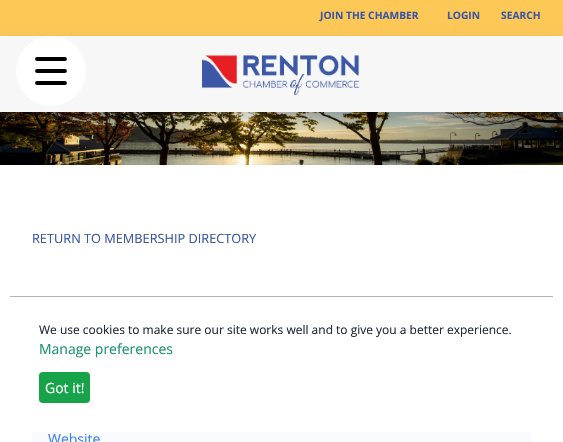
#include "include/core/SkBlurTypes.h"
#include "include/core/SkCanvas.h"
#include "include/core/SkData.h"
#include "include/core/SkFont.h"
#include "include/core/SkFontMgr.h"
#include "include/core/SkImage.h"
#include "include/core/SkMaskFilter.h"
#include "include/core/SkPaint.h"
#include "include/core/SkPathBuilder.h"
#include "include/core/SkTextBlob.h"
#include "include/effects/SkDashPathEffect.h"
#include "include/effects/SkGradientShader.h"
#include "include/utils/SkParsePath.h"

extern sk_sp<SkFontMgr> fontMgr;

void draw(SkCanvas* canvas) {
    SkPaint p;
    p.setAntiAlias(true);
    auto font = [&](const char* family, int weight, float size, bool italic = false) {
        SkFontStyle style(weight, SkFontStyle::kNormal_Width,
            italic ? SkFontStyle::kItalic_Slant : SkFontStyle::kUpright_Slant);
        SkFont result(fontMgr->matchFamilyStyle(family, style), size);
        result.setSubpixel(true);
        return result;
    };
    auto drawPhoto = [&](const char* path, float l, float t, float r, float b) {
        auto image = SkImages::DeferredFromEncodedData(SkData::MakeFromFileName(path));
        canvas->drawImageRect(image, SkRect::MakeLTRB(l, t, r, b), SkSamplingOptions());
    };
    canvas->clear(0xFFFFFFFF);
    p.setColor(0xFFFDC856);
    canvas->drawRect(SkRect::MakeLTRB(0, 0, 563, 36), p);
    auto font1 = font("Open Sans", 700, 10.25f);
    p.setColor(0xFF3A56A6);
    {
        const struct { const char* s; float x, y; } items[] = {
            {"JOIN THE CHAMBER", 320, 19},
            {"LOGIN", 447, 19},
            {"SEARCH", 501, 19},
        };
        for (auto [s, x, y] : items) {
            canvas->drawString(s, x, y, font1, p);
        }
    }
    drawPhoto("media/2.png", 0, 112, 563, 165);
    p.setColor(0x33000000);
    p.setMaskFilter(SkMaskFilter::MakeBlur(kNormal_SkBlurStyle, 7.5f));
    canvas->drawRect(SkRect::MakeLTRB(0, 46, 563, 122), p);
    p.setMaskFilter(nullptr);
    p.setColor(0xFFF7F7F7);
    canvas->drawRect(SkRect::MakeLTRB(0, 36, 563, 112), p);
    p.setColor(0xFFFFFFFF);
    canvas->drawCircle(51, 71, 35, p);
    p.setStyle(SkPaint::kStroke_Style);
    p.setStrokeWidth(3.8f);
    p.setStrokeCap(SkPaint::kRound_Cap);
    p.setColor(0xFF000000);
    canvas->drawPath(SkPathBuilder().moveTo(37, 59).lineTo(65, 59).moveTo(37, 71).lineTo(65, 71).moveTo(37, 83).lineTo(65, 83).detach(), p);
    drawPhoto("media/1.png", 202, 55, 360, 96);
    auto font2 = font("Open Sans", 400, 12.75f);
    p.setStyle(SkPaint::kFill_Style);
    p.setColor(0xFF3A56A6);
    canvas->drawString("RETURN TO MEMBERSHIP DIRECTORY", 32, 243, font2, p);
    p.setColor(0xFFF9FAFB);
    canvas->drawRect(SkRect::MakeLTRB(32, 432, 531, 442), p);
    auto font3 = font("Open Sans", 400, 14);
    p.setColor(0xFF3B82F6);
    canvas->drawString("Website", 48, 444, font3, p);
    p.setColor(0xFFB3B3B3);
    canvas->drawRect(SkRect::MakeLTRB(10, 296, 553, 297), p);
    auto font4 = font("Open Sans", 400, 12);
    p.setColor(0xFF1F2937);
    canvas->drawString("We use cookies to make sure our site works well and to give you a better experience.", 39, 334, font4, p);
    p.setColor(0xFF1A936F);
    canvas->drawString("Manage preferences", 39, 354, font3, p);
    p.setColor(0xFF16A34A);
    canvas->drawRoundRect(SkRect::MakeLTRB(39, 372, 90, 403), 4, 4, p);
    p.setColor(0xFFFFFFFF);
    canvas->drawString("Got it!", 45, 393, font3, p);
}
